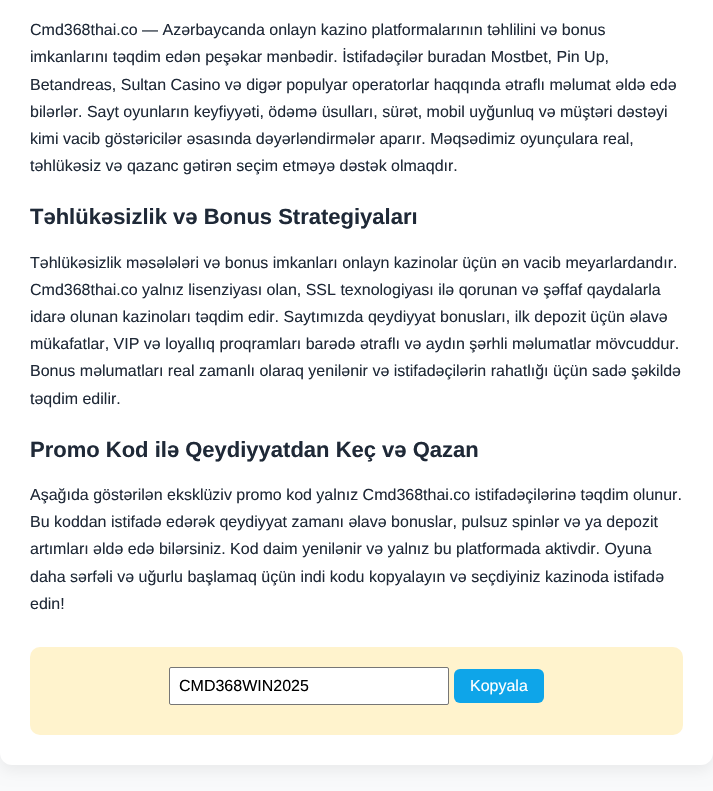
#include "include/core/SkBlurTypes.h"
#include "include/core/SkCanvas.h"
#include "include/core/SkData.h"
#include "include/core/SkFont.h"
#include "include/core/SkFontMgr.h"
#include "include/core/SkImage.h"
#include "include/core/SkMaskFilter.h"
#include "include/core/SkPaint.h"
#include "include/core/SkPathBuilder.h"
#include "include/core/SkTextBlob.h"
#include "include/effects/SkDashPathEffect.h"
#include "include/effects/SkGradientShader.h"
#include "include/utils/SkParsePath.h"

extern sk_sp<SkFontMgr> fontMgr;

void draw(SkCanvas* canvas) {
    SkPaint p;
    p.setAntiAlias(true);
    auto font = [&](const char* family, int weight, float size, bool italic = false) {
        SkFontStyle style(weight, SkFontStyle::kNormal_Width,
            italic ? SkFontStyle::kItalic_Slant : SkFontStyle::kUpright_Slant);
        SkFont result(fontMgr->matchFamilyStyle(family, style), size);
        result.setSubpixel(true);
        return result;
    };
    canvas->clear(0xFFF9FAFB);
    p.setColor(0x0F000000);
    p.setMaskFilter(SkMaskFilter::MakeBlur(kNormal_SkBlurStyle, 7));
    canvas->drawRoundRect(SkRect::MakeLTRB(0, -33, 713, 771), 12, 12, p);
    p.setMaskFilter(nullptr);
    p.setColor(0xFFFFFFFF);
    canvas->drawRoundRect(SkRect::MakeLTRB(0, -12, 713, 765), 12, 12, p);
    auto font1 = font("Liberation Sans", 400, 16);
    p.setColor(0xFF1F2937);
    {
        const struct { const char* s; float x, y; } items[] = {
            {"Cmd368thai.co — Azərbaycanda onlayn kazino platformalarının təhlilini və bonus", 30, 35},
            {"imkanlarını təqdim edən peşəkar mənbədir. İstifadəçilər buradan Mostbet, Pin Up,", 30, 62},
            {"Betandreas, Sultan Casino və digər populyar operatorlar haqqında ətraflı məlumat əldə edə", 30, 90},
            {"bilərlər. Sayt oyunların keyfiyyəti, ödəmə üsulları, sürət, mobil uyğunluq və müştəri dəstəyi", 30, 117},
            {"kimi vacib göstəricilər əsasında dəyərləndirmələr aparır. Məqsədimiz oyunçulara real,", 30, 144},
            {"təhlükəsiz və qazanc gətirən seçim etməyə dəstək olmaqdır.", 30, 171},
        };
        for (auto [s, x, y] : items) {
            canvas->drawString(s, x, y, font1, p);
        }
    }
    auto font2 = font("Liberation Sans", 700, 22);
    canvas->drawString("Təhlükəsizlik və Bonus Strategiyaları", 30, 224, font2, p);
    {
        const struct { const char* s; float x, y; } items[] = {
            {"Təhlükəsizlik məsələləri və bonus imkanları onlayn kazinolar üçün ən vacib meyarlardandır.", 30, 268},
            {"Cmd368thai.co yalnız lisenziyası olan, SSL texnologiyası ilə qorunan və şəffaf qaydalarla", 30, 295},
            {"idarə olunan kazinoları təqdim edir. Saytımızda qeydiyyat bonusları, ilk depozit üçün əlavə", 30, 322},
            {"mükafatlar, VIP və loyallıq proqramları barədə ətraflı və aydın şərhli məlumatlar mövcuddur.", 30, 349},
            {"Bonus məlumatları real zamanlı olaraq yenilənir və istifadəçilərin rahatlığı üçün sadə şəkildə", 30, 376},
            {"təqdim edilir.", 30, 404},
        };
        for (auto [s, x, y] : items) {
            canvas->drawString(s, x, y, font1, p);
        }
    }
    canvas->drawString("Promo Kod ilə Qeydiyyatdan Keç və Qazan", 30, 457, font2, p);
    {
        const struct { const char* s; float x, y; } items[] = {
            {"Aşağıda göstərilən eksklüziv promo kod yalnız Cmd368thai.co istifadəçilərinə təqdim olunur.", 30, 500},
            {"Bu koddan istifadə edərək qeydiyyat zamanı əlavə bonuslar, pulsuz spinlər və ya depozit", 30, 527},
            {"artımları əldə edə bilərsiniz. Kod daim yenilənir və yalnız bu platformada aktivdir. Oyuna", 30, 554},
            {"daha sərfəli və uğurlu başlamaq üçün indi kodu kopyalayın və seçdiyiniz kazinoda istifadə", 30, 582},
            {"edin!", 30, 609},
        };
        for (auto [s, x, y] : items) {
            canvas->drawString(s, x, y, font1, p);
        }
    }
    p.setColor(0xFFFFF3CD);
    canvas->drawRoundRect(SkRect::MakeLTRB(30, 647, 683, 735), 10, 10, p);
    p.setColor(0xFFFFFFFF);
    canvas->drawRoundRect(SkRect::MakeLTRB(169.5f, 667.5f, 448.5f, 704.5f), 1.5f, 1.5f, p);
    p.setStyle(SkPaint::kStroke_Style);
    p.setStrokeWidth(1);
    p.setColor(0xFF767676);
    canvas->drawRoundRect(SkRect::MakeLTRB(169.5f, 667.5f, 448.5f, 704.5f), 1.5f, 1.5f, p);
    p.setStyle(SkPaint::kFill_Style);
    p.setColor(0xFF000000);
    canvas->drawString("CMD368WIN2025", 179, 691, font1, p);
    p.setColor(0xFF0EA5E9);
    canvas->drawRoundRect(SkRect::MakeLTRB(454, 669, 544, 703), 6, 6, p);
    p.setColor(0xFFFFFFFF);
    canvas->drawString("Kopyala", 470, 691, font1, p);
}
